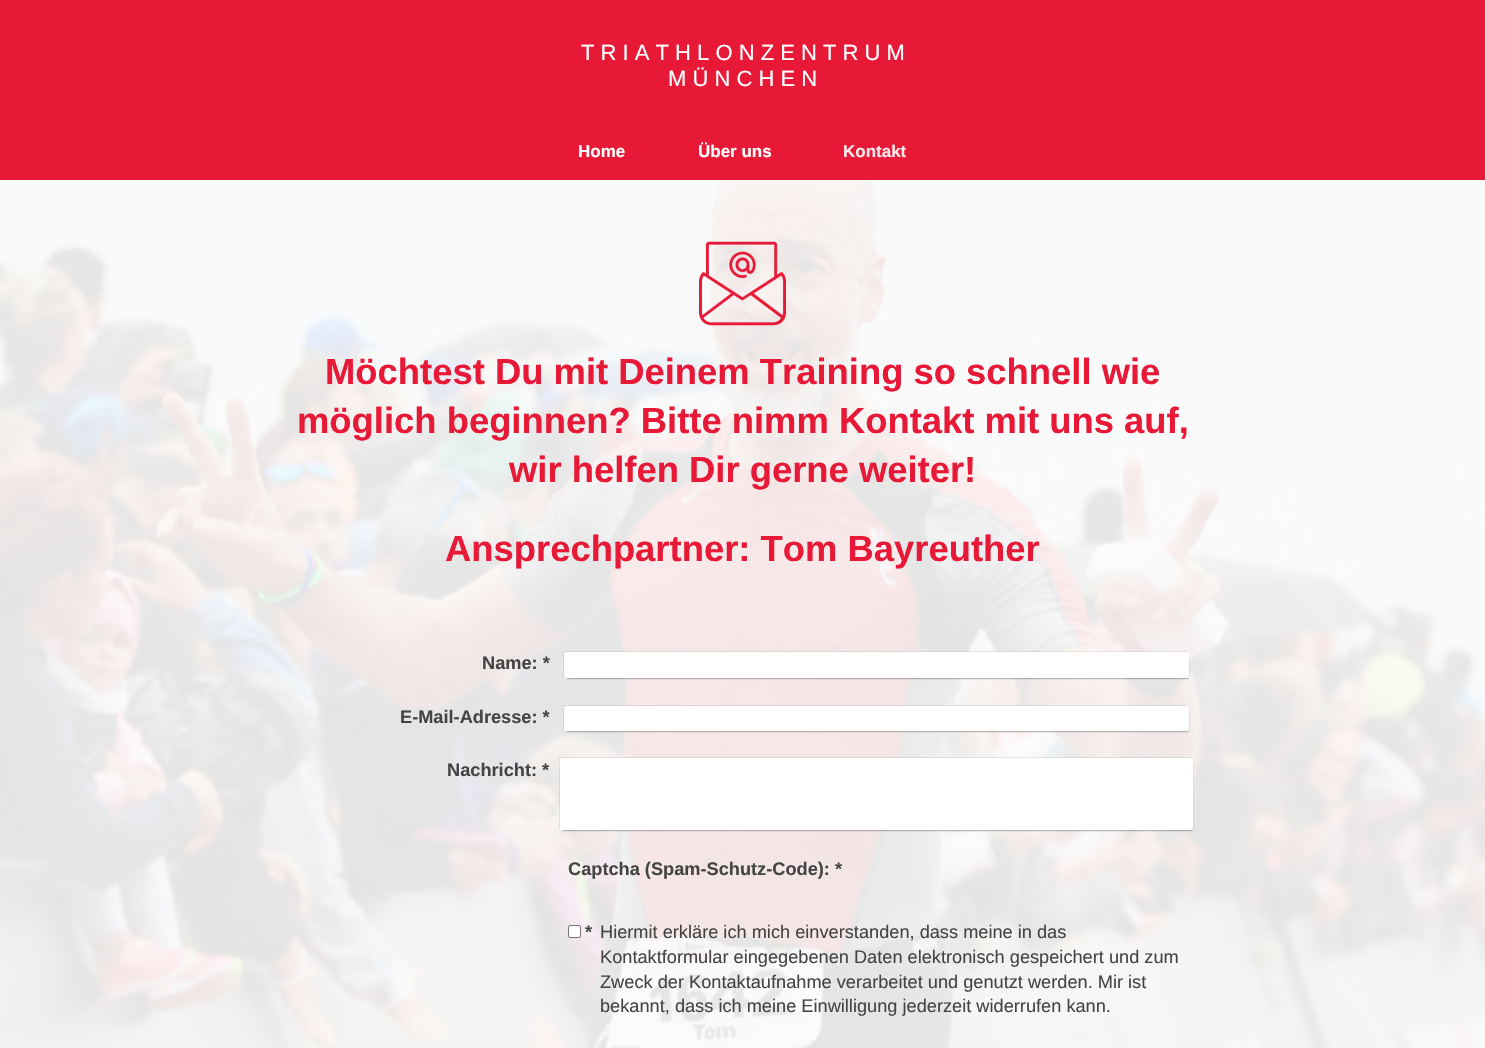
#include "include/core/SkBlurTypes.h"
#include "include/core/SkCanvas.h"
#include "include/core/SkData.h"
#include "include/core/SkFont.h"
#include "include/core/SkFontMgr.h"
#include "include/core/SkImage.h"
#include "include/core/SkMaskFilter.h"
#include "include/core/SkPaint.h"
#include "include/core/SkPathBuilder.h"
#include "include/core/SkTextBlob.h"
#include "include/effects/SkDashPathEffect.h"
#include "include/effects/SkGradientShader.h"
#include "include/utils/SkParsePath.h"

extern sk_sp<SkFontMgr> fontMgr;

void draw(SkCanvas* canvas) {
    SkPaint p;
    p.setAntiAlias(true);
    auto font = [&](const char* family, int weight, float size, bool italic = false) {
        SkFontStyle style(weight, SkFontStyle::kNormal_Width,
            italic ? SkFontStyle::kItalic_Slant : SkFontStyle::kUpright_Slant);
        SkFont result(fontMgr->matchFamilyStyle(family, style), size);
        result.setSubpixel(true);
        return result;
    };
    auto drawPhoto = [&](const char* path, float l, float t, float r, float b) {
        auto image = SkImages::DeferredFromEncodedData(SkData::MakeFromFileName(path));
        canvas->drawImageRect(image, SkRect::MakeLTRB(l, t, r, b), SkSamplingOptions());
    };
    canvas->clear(0xFFFFFFFF);
    drawPhoto("media/1.png", 0, 180, 1485, 1048);
    p.setColor(0xFFE71937);
    canvas->drawRect(SkRect::MakeLTRB(0, 0, 1485, 180), p);
    auto font1 = font("Liberation Sans", 400, 22);
    p.setColor(0xFFFFFFFF);
    canvas->drawString("T R I A T H L O N Z E N T R U M", 581, 60, font1, p);
    canvas->drawString("M Ü N C H E N", 668, 86, font1, p);
    auto font2 = font("Liberation Sans", 700, 17);
    canvas->drawString("Home", 578, 157, font2, p);
    canvas->drawString("Über uns", 698, 157, font2, p);
    p.setColor(0xFFFDE8EB);
    canvas->drawString("Kontakt", 843, 157, font2, p);
    p.setColor(0xE6FCFCFC);
    canvas->drawRect(SkRect::MakeLTRB(0, 180, 1485, 1048), p);
    drawPhoto("media/2.png", 699, 241, 786, 326);
    auto font3 = font("Liberation Sans", 700, 36.4f);
    p.setColor(0xFFE71937);
    {
        const struct { const char* s; float x, y; } items[] = {
            {"Möchtest Du mit Deinem Training so schnell wie", 325, 384},
            {"möglich beginnen? Bitte nimm Kontakt mit uns auf,", 297, 433},
            {"wir helfen Dir gerne weiter!", 509, 482},
            {"Ansprechpartner: Tom Bayreuther", 445, 561},
        };
        for (auto [s, x, y] : items) {
            canvas->drawString(s, x, y, font3, p);
        }
    }
    p.setColor(0x14000000);
    canvas->drawPath(SkPathBuilder().moveTo(565, 651).cubicTo(564, 651, 563, 652, 563, 653).lineTo(563, 675).cubicTo(563, 676, 563, 677, 564, 677).lineTo(564, 658).cubicTo(564, 656, 563, 652, 566, 652).lineTo(1188, 652).lineTo(1186, 651).close().detach(), p);
    p.setColor(0xCC000000);
    p.setMaskFilter(SkMaskFilter::MakeBlur(kNormal_SkBlurStyle, 1));
    canvas->drawRect(SkRect::MakeLTRB(567, 656, 1188, 678), p);
    p.setMaskFilter(nullptr);
    auto font4 = font("Liberation Sans", 700, 18.2f);
    p.setColor(0xFF444444);
    canvas->drawString("Name: *", 482, 669, font4, p);
    p.setColor(0xFFFFFFFF);
    canvas->drawRoundRect(SkRect::MakeLTRB(564, 652, 1189, 678), 2, 2, p);
    p.setColor(0x14000000);
    canvas->drawPath(SkPathBuilder().moveTo(565, 705).cubicTo(564, 705, 563, 706, 563, 707).lineTo(563, 728).cubicTo(563, 729, 563, 730, 564, 730).lineTo(564, 712).cubicTo(564, 710, 563, 706, 566, 706).lineTo(1188, 706).lineTo(1186, 705).close().detach(), p);
    p.setColor(0xCC000000);
    p.setMaskFilter(SkMaskFilter::MakeBlur(kNormal_SkBlurStyle, 1));
    canvas->drawRect(SkRect::MakeLTRB(567, 710, 1188, 731), p);
    p.setMaskFilter(nullptr);
    p.setColor(0xFF444444);
    canvas->drawString("E-Mail-Adresse: *", 400, 723, font4, p);
    p.setColor(0xFFFFFFFF);
    canvas->drawRoundRect(SkRect::MakeLTRB(564, 706, 1189, 731), 2, 2, p);
    p.setColor(0x14000000);
    canvas->drawPath(SkPathBuilder().moveTo(561, 757).lineTo(559, 758).lineTo(559, 828).lineTo(560, 829).lineTo(560, 771).cubicTo(560, 767, 558, 758, 562, 758).lineTo(1192, 758).lineTo(1190, 757).close().detach(), p);
    p.setColor(0xCC000000);
    p.setMaskFilter(SkMaskFilter::MakeBlur(kNormal_SkBlurStyle, 1));
    canvas->drawRect(SkRect::MakeLTRB(563, 762, 1192, 830), p);
    p.setMaskFilter(nullptr);
    p.setColor(0xFF444444);
    canvas->drawString("Nachricht: *", 447, 776, font4, p);
    p.setColor(0xFFFFFFFF);
    canvas->drawRoundRect(SkRect::MakeLTRB(560, 758, 1193, 830), 2, 2, p);
    p.setColor(0xFF444444);
    canvas->drawString("Captcha (Spam-Schutz-Code): *", 568, 875, font4, p);
    p.setColor(0xFFFFFFFF);
    canvas->drawRoundRect(SkRect::MakeLTRB(568.5f, 925.5f, 580.5f, 937.5f), 1.5f, 1.5f, p);
    p.setStyle(SkPaint::kStroke_Style);
    p.setStrokeWidth(1);
    p.setColor(0xFF767676);
    canvas->drawRoundRect(SkRect::MakeLTRB(568.5f, 925.5f, 580.5f, 937.5f), 1.5f, 1.5f, p);
    p.setStyle(SkPaint::kFill_Style);
    p.setColor(0xFF444444);
    canvas->drawString("*", 585, 938, font4, p);
    auto font5 = font("Liberation Sans", 400, 18.2f);
    {
        const struct { const char* s; float x, y; } items[] = {
            {"Hiermit erkläre ich mich einverstanden, dass meine in das", 600, 938},
            {"Kontaktformular eingegebenen Daten elektronisch gespeichert und zum", 600, 963},
            {"Zweck der Kontaktaufnahme verarbeitet und genutzt werden. Mir ist", 600, 988},
            {"bekannt, dass ich meine Einwilligung jederzeit widerrufen kann.", 600, 1012},
        };
        for (auto [s, x, y] : items) {
            canvas->drawString(s, x, y, font5, p);
        }
    }
}
